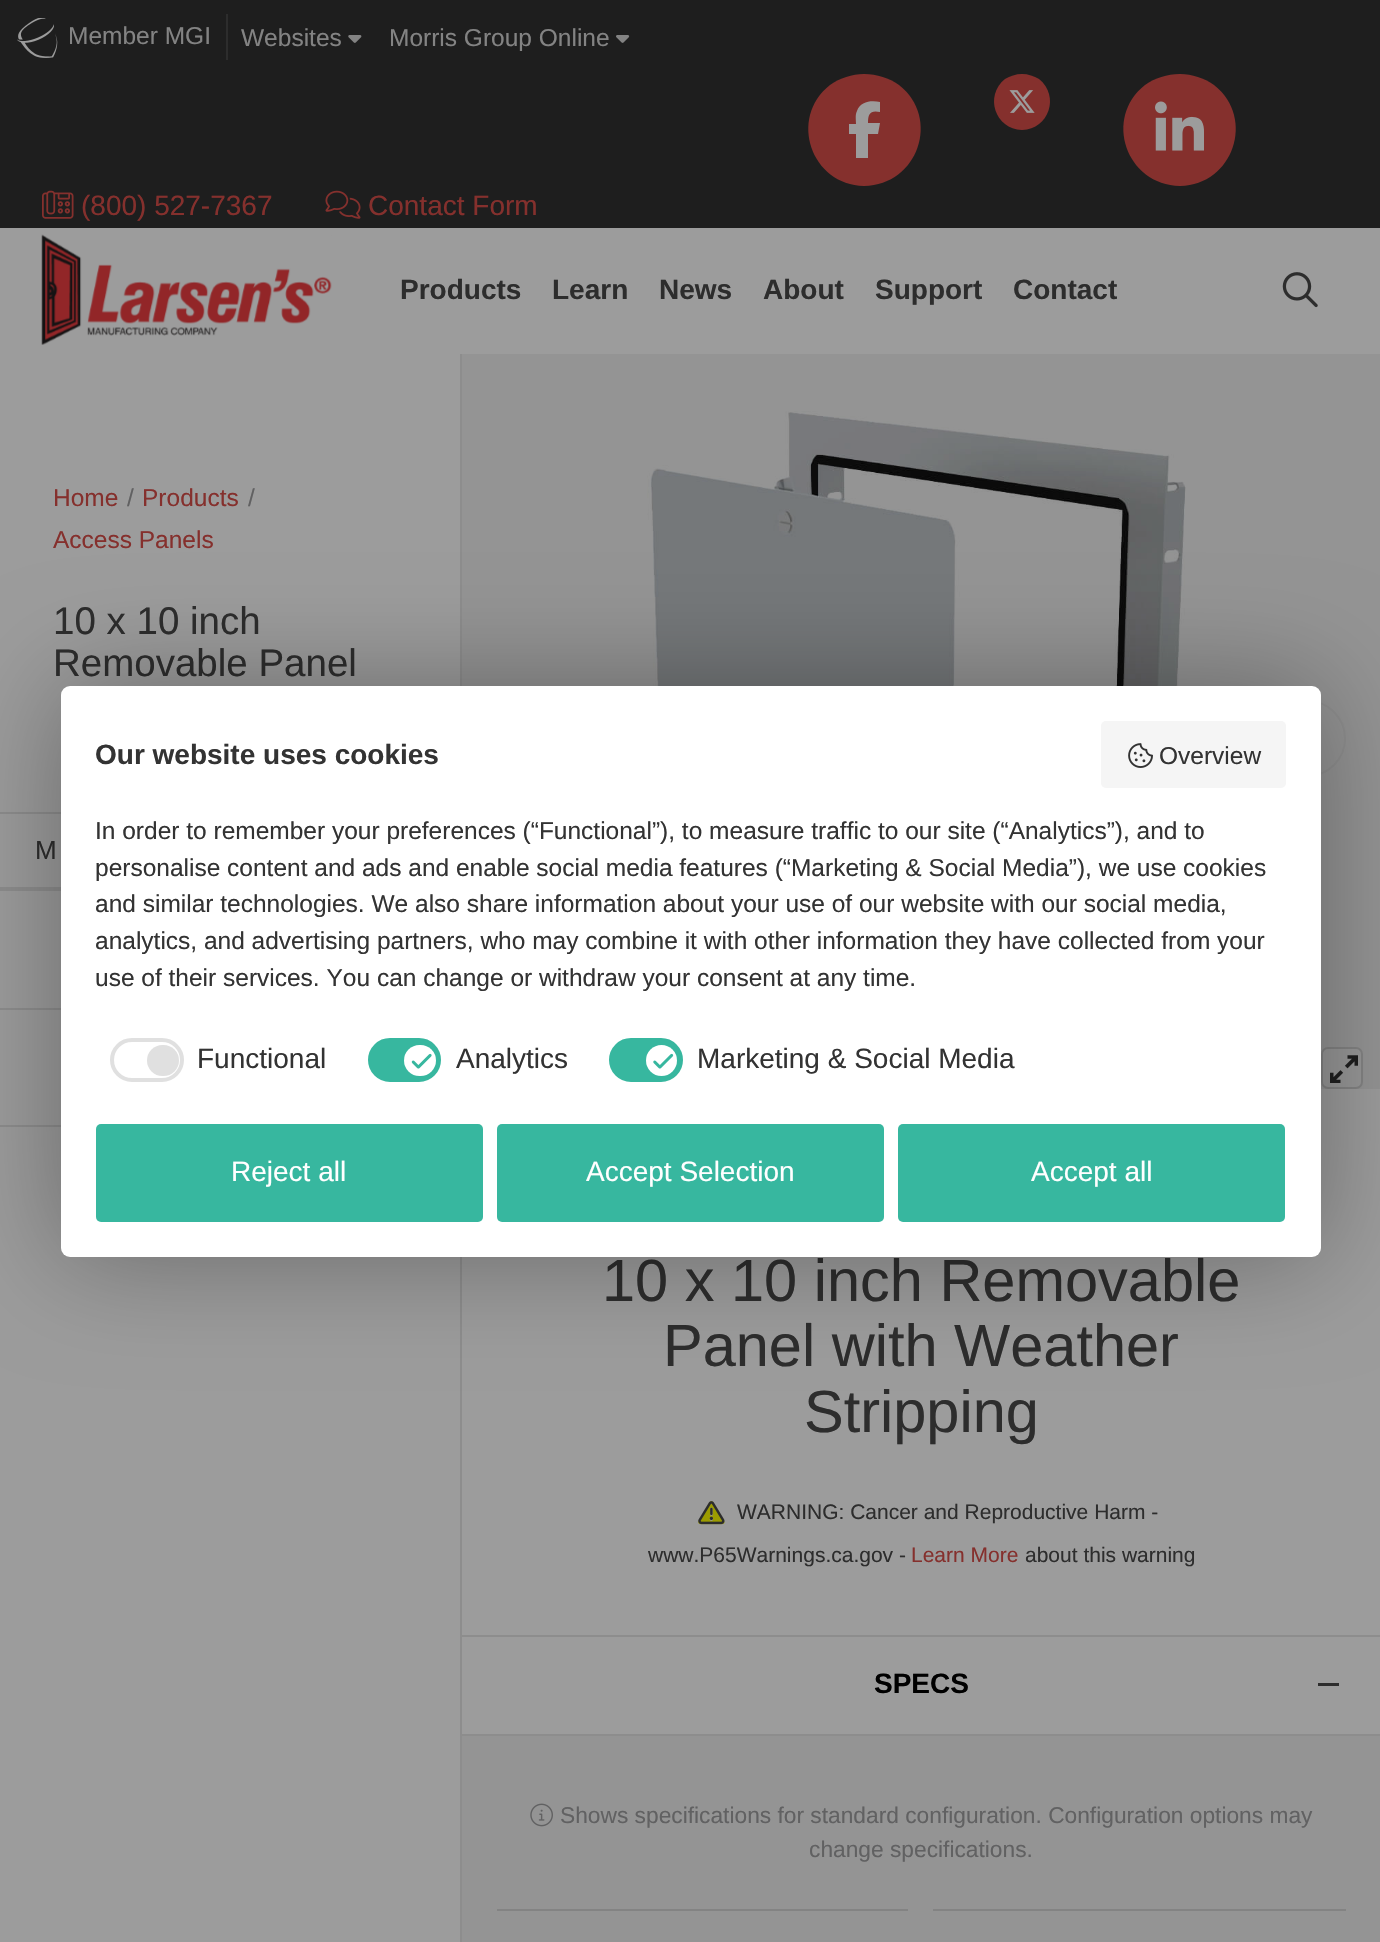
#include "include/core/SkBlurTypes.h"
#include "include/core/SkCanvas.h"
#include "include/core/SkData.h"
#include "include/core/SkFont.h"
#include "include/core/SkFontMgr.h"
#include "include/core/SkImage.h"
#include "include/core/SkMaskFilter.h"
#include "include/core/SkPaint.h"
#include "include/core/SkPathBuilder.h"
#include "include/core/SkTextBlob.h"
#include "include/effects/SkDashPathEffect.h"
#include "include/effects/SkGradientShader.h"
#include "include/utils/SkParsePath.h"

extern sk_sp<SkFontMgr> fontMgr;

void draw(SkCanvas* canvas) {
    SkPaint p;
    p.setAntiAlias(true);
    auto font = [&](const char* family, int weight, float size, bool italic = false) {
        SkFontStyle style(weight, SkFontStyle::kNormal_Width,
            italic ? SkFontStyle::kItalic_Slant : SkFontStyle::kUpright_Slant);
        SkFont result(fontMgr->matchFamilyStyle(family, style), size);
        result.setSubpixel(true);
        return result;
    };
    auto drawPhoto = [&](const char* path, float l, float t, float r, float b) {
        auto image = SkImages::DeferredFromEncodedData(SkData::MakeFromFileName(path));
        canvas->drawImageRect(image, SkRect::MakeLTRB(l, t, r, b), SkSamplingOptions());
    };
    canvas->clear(0xFF9C9C9C);
    p.setColor(0xFF1E1E1E);
    canvas->drawRect(SkRect::MakeLTRB(0, 0, 1380, 228), p);
    p.setColor(0xFF2D2D2D);
    canvas->drawRect(SkRect::MakeLTRB(226, 14, 228, 60), p);
    drawPhoto("media/1.png", 17, 18, 58, 58);
    auto font1 = font("Liberation Sans", 400, 24.5f);
    p.setColor(0xFF838383);
    canvas->drawString("Member MGI", 68, 44, font1, p);
    canvas->drawString("Websites", 241, 46, font1, p);
    drawPhoto("media/2.png", 348, 35, 362, 43);
    canvas->drawString("Morris Group Online", 389, 46, font1, p);
    drawPhoto("media/3.png", 616, 35, 630, 43);
    p.setColor(0xFF85302D);
    canvas->drawPath(SkPathBuilder().moveTo(864, 186).cubicTo(918, 185, 941, 118, 899, 85).cubicTo(889, 78, 877, 74, 864, 74).cubicTo(852, 74, 840, 78, 830, 85).cubicTo(788, 118, 811, 185, 864, 186).close().detach(), p);
    p.setColor(0xFF9C9C9C);
    canvas->drawPath(SkPathBuilder().moveTo(856, 134).lineTo(856, 158).lineTo(856, 134).lineTo(856, 158).lineTo(868, 158).lineTo(868, 134).lineTo(878, 134).lineTo(880, 123).lineTo(868, 123).cubicTo(868, 114, 870, 110, 880, 112).lineTo(880, 102).cubicTo(872, 100, 860, 101, 857, 111).cubicTo(855, 115, 856, 119, 856, 124).lineTo(849, 124).lineTo(849, 134).close().detach(), p);
    p.setColor(0xFF85302D);
    canvas->drawPath(SkPathBuilder().moveTo(1022, 130).cubicTo(1049, 129, 1060, 96, 1039, 79).cubicTo(1034, 76, 1028, 74, 1022, 74).cubicTo(1016, 74, 1010, 76, 1005, 79).cubicTo(984, 96, 995, 129, 1022, 130).close().detach(), p);
    drawPhoto("media/4.png", 1009, 90, 1035, 113);
    canvas->drawPath(SkPathBuilder().moveTo(1180, 186).cubicTo(1233, 185, 1256, 118, 1214, 85).cubicTo(1204, 78, 1192, 74, 1180, 74).cubicTo(1167, 74, 1155, 78, 1145, 85).cubicTo(1103, 118, 1126, 185, 1180, 186).close().detach(), p);
    drawPhoto("media/5.png", 1155, 101, 1204, 151);
    drawPhoto("media/6.png", 42, 190, 74, 219);
    auto font2 = font("Liberation Sans", 400, 28);
    canvas->drawString("(800) 527-7367", 81, 215, font2, p);
    drawPhoto("media/7.png", 325, 190, 361, 219);
    canvas->drawString("Contact Form", 368, 215, font2, p);
    drawPhoto("media/8.png", 41, 234, 332, 345);
    auto font3 = font("Liberation Sans", 700, 28);
    p.setColor(0xFF2D2D2D);
    {
        const struct { const char* s; float x, y; } items[] = {
            {"Products", 400, 299},
            {"Learn", 552, 299},
            {"News", 659, 299},
            {"About", 763, 299},
            {"Support", 875, 299},
            {"Contact", 1013, 299},
        };
        for (auto [s, x, y] : items) {
            canvas->drawString(s, x, y, font3, p);
        }
    }
    drawPhoto("media/9.png", 1282, 272, 1318, 308);
    p.setColor(0xFF85302D);
    canvas->drawString("Home", 53, 506, font1, p);
    p.setColor(0xFF616162);
    canvas->drawString("/", 127, 506, font1, p);
    p.setColor(0xFF85302D);
    canvas->drawString("Products", 142, 506, font1, p);
    p.setColor(0xFF616162);
    canvas->drawString("/", 248, 506, font1, p);
    p.setColor(0xFF85302D);
    canvas->drawString("Access Panels", 53, 548, font1, p);
    auto font4 = font("Liberation Sans", 400, 38.5f);
    p.setColor(0xFF2D2D2D);
    canvas->drawString("10 x 10 inch", 53, 634, font4, p);
    canvas->drawString("Removable Panel", 53, 676, font4, p);
    p.setColor(0xFF8D8D8D);
    canvas->drawRect(SkRect::MakeLTRB(0, 812, 61, 814), p);
    canvas->drawRect(SkRect::MakeLTRB(0, 887, 61, 891), p);
    auto font5 = font("Liberation Sans", 400, 26);
    p.setColor(0xFF2D2D2D);
    canvas->drawString("M", 35, 859, font5, p);
    {
        const struct { float l, t, r, b; SkColor color; } items[] = {
            {0, 1008, 61, 1010, 0xFF8D8D8D},
            {0, 1125, 61, 1127, 0xFF8D8D8D},
            {462, 354, 1380, 1942, 0xFF949494},
            {460, 354, 462, 1942, 0xFF8D8D8D},
        };
        for (auto [l, t, r, b, color] : items) {
            p.setColor(color);
            canvas->drawRect(SkRect::MakeLTRB(l, t, r, b), p);
        }
    }
    drawPhoto("media/10.png", 647, 411, 1186, 686);
    p.setStyle(SkPaint::kStroke_Style);
    p.setStrokeWidth(2);
    p.setColor(0xFF8F8F8F);
    canvas->drawCircle(1307.5f, 738.5f, 37.5f, p);
    p.setStyle(SkPaint::kFill_Style);
    p.setColor(0xFF979797);
    canvas->drawRoundRect(SkRect::MakeLTRB(1322, 1048, 1362, 1088), 6, 6, p);
    p.setStyle(SkPaint::kStroke_Style);
    p.setColor(0xFF838383);
    canvas->drawRoundRect(SkRect::MakeLTRB(1322, 1048, 1362, 1088), 6, 6, p);
    drawPhoto("media/11.png", 1330, 1055, 1358, 1083);
    p.setStyle(SkPaint::kFill_Style);
    p.setColor(0xFF9C9C9C);
    canvas->drawRect(SkRect::MakeLTRB(462, 1089, 1380, 1635), p);
    auto font6 = font("Liberation Sans", 400, 59.5f);
    p.setColor(0xFF2D2D2D);
    {
        const struct { const char* s; float x, y; } items[] = {
            {"10 x 10 inch Removable", 602, 1301},
            {"Panel with Weather", 663, 1366},
            {"Stripping", 804, 1432},
        };
        for (auto [s, x, y] : items) {
            canvas->drawString(s, x, y, font6, p);
        }
    }
    drawPhoto("media/12.png", 698, 1501, 725, 1525);
    drawPhoto("media/13.png", 698, 1501, 725, 1525);
    auto font7 = font("Liberation Sans", 400, 21);
    canvas->drawString("WARNING: Cancer and Reproductive Harm -", 737, 1519, font7, p);
    canvas->drawString("www.P65Warnings.ca.gov -", 648, 1562, font7, p);
    p.setColor(0xFF85302D);
    canvas->drawString("Learn More", 911, 1562, font7, p);
    p.setColor(0xFF2D2D2D);
    canvas->drawString("about this warning", 1025, 1562, font7, p);
    {
        const struct { float l, t, r, b; SkColor color; } items[] = {
            {462, 1637, 1380, 1734, 0xFF9C9C9C},
            {462, 1635, 1380, 1637, 0xFF8D8D8D},
            {462, 1734, 1380, 1736, 0xFF8D8D8D},
        };
        for (auto [l, t, r, b, color] : items) {
            p.setColor(color);
            canvas->drawRect(SkRect::MakeLTRB(l, t, r, b), p);
        }
    }
    p.setColor(0xFF000000);
    canvas->drawString("SPECS", 874, 1693, font3, p);
    p.setColor(0xFF2D2D2D);
    canvas->drawRect(SkRect::MakeLTRB(1318, 1683, 1339, 1686), p);
    drawPhoto("media/14.png", 530, 1803, 553, 1827);
    auto font8 = font("Liberation Sans", 400, 22.75f);
    p.setColor(0xFF616162);
    canvas->drawString("Shows specifications for standard configuration. Configuration options may", 560, 1823, font8, p);
    canvas->drawString("change specifications.", 809, 1857, font8, p);
    p.setColor(0xFF838383);
    canvas->drawRect(SkRect::MakeLTRB(497, 1909, 908, 1911), p);
    canvas->drawRect(SkRect::MakeLTRB(933, 1909, 1346, 1911), p);
    p.setColor(0x54000000);
    p.setMaskFilter(SkMaskFilter::MakeBlur(kNormal_SkBlurStyle, 56));
    canvas->drawRoundRect(SkRect::MakeLTRB(61, 686, 1321, 1257), 9, 9, p);
    p.setMaskFilter(nullptr);
    p.setColor(0xFFFFFFFF);
    canvas->drawRoundRect(SkRect::MakeLTRB(61, 686, 1321, 1257), 9, 9, p);
    p.setColor(0xFF333333);
    canvas->drawString("Our website uses cookies", 95, 764, font3, p);
    p.setColor(0xFFF5F5F5);
    canvas->drawRoundRect(SkRect::MakeLTRB(1101, 721, 1286, 788), 5, 5, p);
    drawPhoto("media/15.png", 1128, 743, 1153, 768);
    p.setColor(0xFF333333);
    {
        const struct { const char* s; float x, y; } items[] = {
            {"Overview", 1159, 764},
            {"In order to remember your preferences (“Functional”), to measure traffic to our site (“Analytics”), and to", 95, 839},
            {"personalise content and ads and enable social media features (“Marketing & Social Media”), we use cookies", 95, 876},
            {"and similar technologies. We also share information about your use of our website with our social media,", 95, 912},
            {"analytics, and advertising partners, who may combine it with other information they have collected from your", 95, 949},
            {"use of their services. You can change or withdraw your consent at any time.", 95, 986},
        };
        for (auto [s, x, y] : items) {
            canvas->drawString(s, x, y, font1, p);
        }
    }
    p.setStyle(SkPaint::kStroke_Style);
    p.setStrokeWidth(4);
    p.setColor(0xFFE0E0E0);
    canvas->drawRoundRect(SkRect::MakeLTRB(112, 1040, 182, 1080), 20, 20, p);
    p.setStyle(SkPaint::kFill_Style);
    canvas->drawRoundRect(SkRect::MakeLTRB(147, 1045, 179, 1076), 15.5f, 15.5f, p);
    p.setColor(0xFF333333);
    canvas->drawString("Functional", 197, 1068, font2, p);
    p.setColor(0xFF37B79F);
    canvas->drawRoundRect(SkRect::MakeLTRB(370, 1040, 439, 1080), 20, 20, p);
    p.setStyle(SkPaint::kStroke_Style);
    canvas->drawRoundRect(SkRect::MakeLTRB(370, 1040, 439, 1080), 20, 20, p);
    p.setStyle(SkPaint::kFill_Style);
    p.setColor(0xFFFFFFFF);
    canvas->drawRoundRect(SkRect::MakeLTRB(404, 1045, 436, 1076), 15.5f, 15.5f, p);
    drawPhoto("media/16.png", 411, 1053, 432, 1069);
    p.setColor(0xFF333333);
    canvas->drawString("Analytics", 456, 1068, font2, p);
    p.setColor(0xFF37B79F);
    canvas->drawRoundRect(SkRect::MakeLTRB(611, 1040, 681, 1080), 20, 20, p);
    p.setStyle(SkPaint::kStroke_Style);
    canvas->drawRoundRect(SkRect::MakeLTRB(611, 1040, 681, 1080), 20, 20, p);
    p.setStyle(SkPaint::kFill_Style);
    p.setColor(0xFFFFFFFF);
    canvas->drawCircle(661.5f, 1060.5f, 15.5f, p);
    drawPhoto("media/17.png", 653, 1053, 674, 1069);
    p.setColor(0xFF333333);
    canvas->drawString("Marketing & Social Media", 697, 1068, font2, p);
    p.setColor(0xFF37B79F);
    canvas->drawRoundRect(SkRect::MakeLTRB(96, 1124, 483, 1222), 5, 5, p);
    p.setColor(0xFFFFFFFF);
    canvas->drawString("Reject all", 231, 1181, font2, p);
    p.setColor(0xFF37B79F);
    canvas->drawRoundRect(SkRect::MakeLTRB(497, 1124, 884, 1222), 5, 5, p);
    p.setColor(0xFFFFFFFF);
    canvas->drawString("Accept Selection", 586, 1181, font2, p);
    p.setColor(0xFF37B79F);
    canvas->drawRoundRect(SkRect::MakeLTRB(898, 1124, 1285, 1222), 5, 5, p);
    p.setColor(0xFFFFFFFF);
    canvas->drawString("Accept all", 1031, 1181, font2, p);
}
